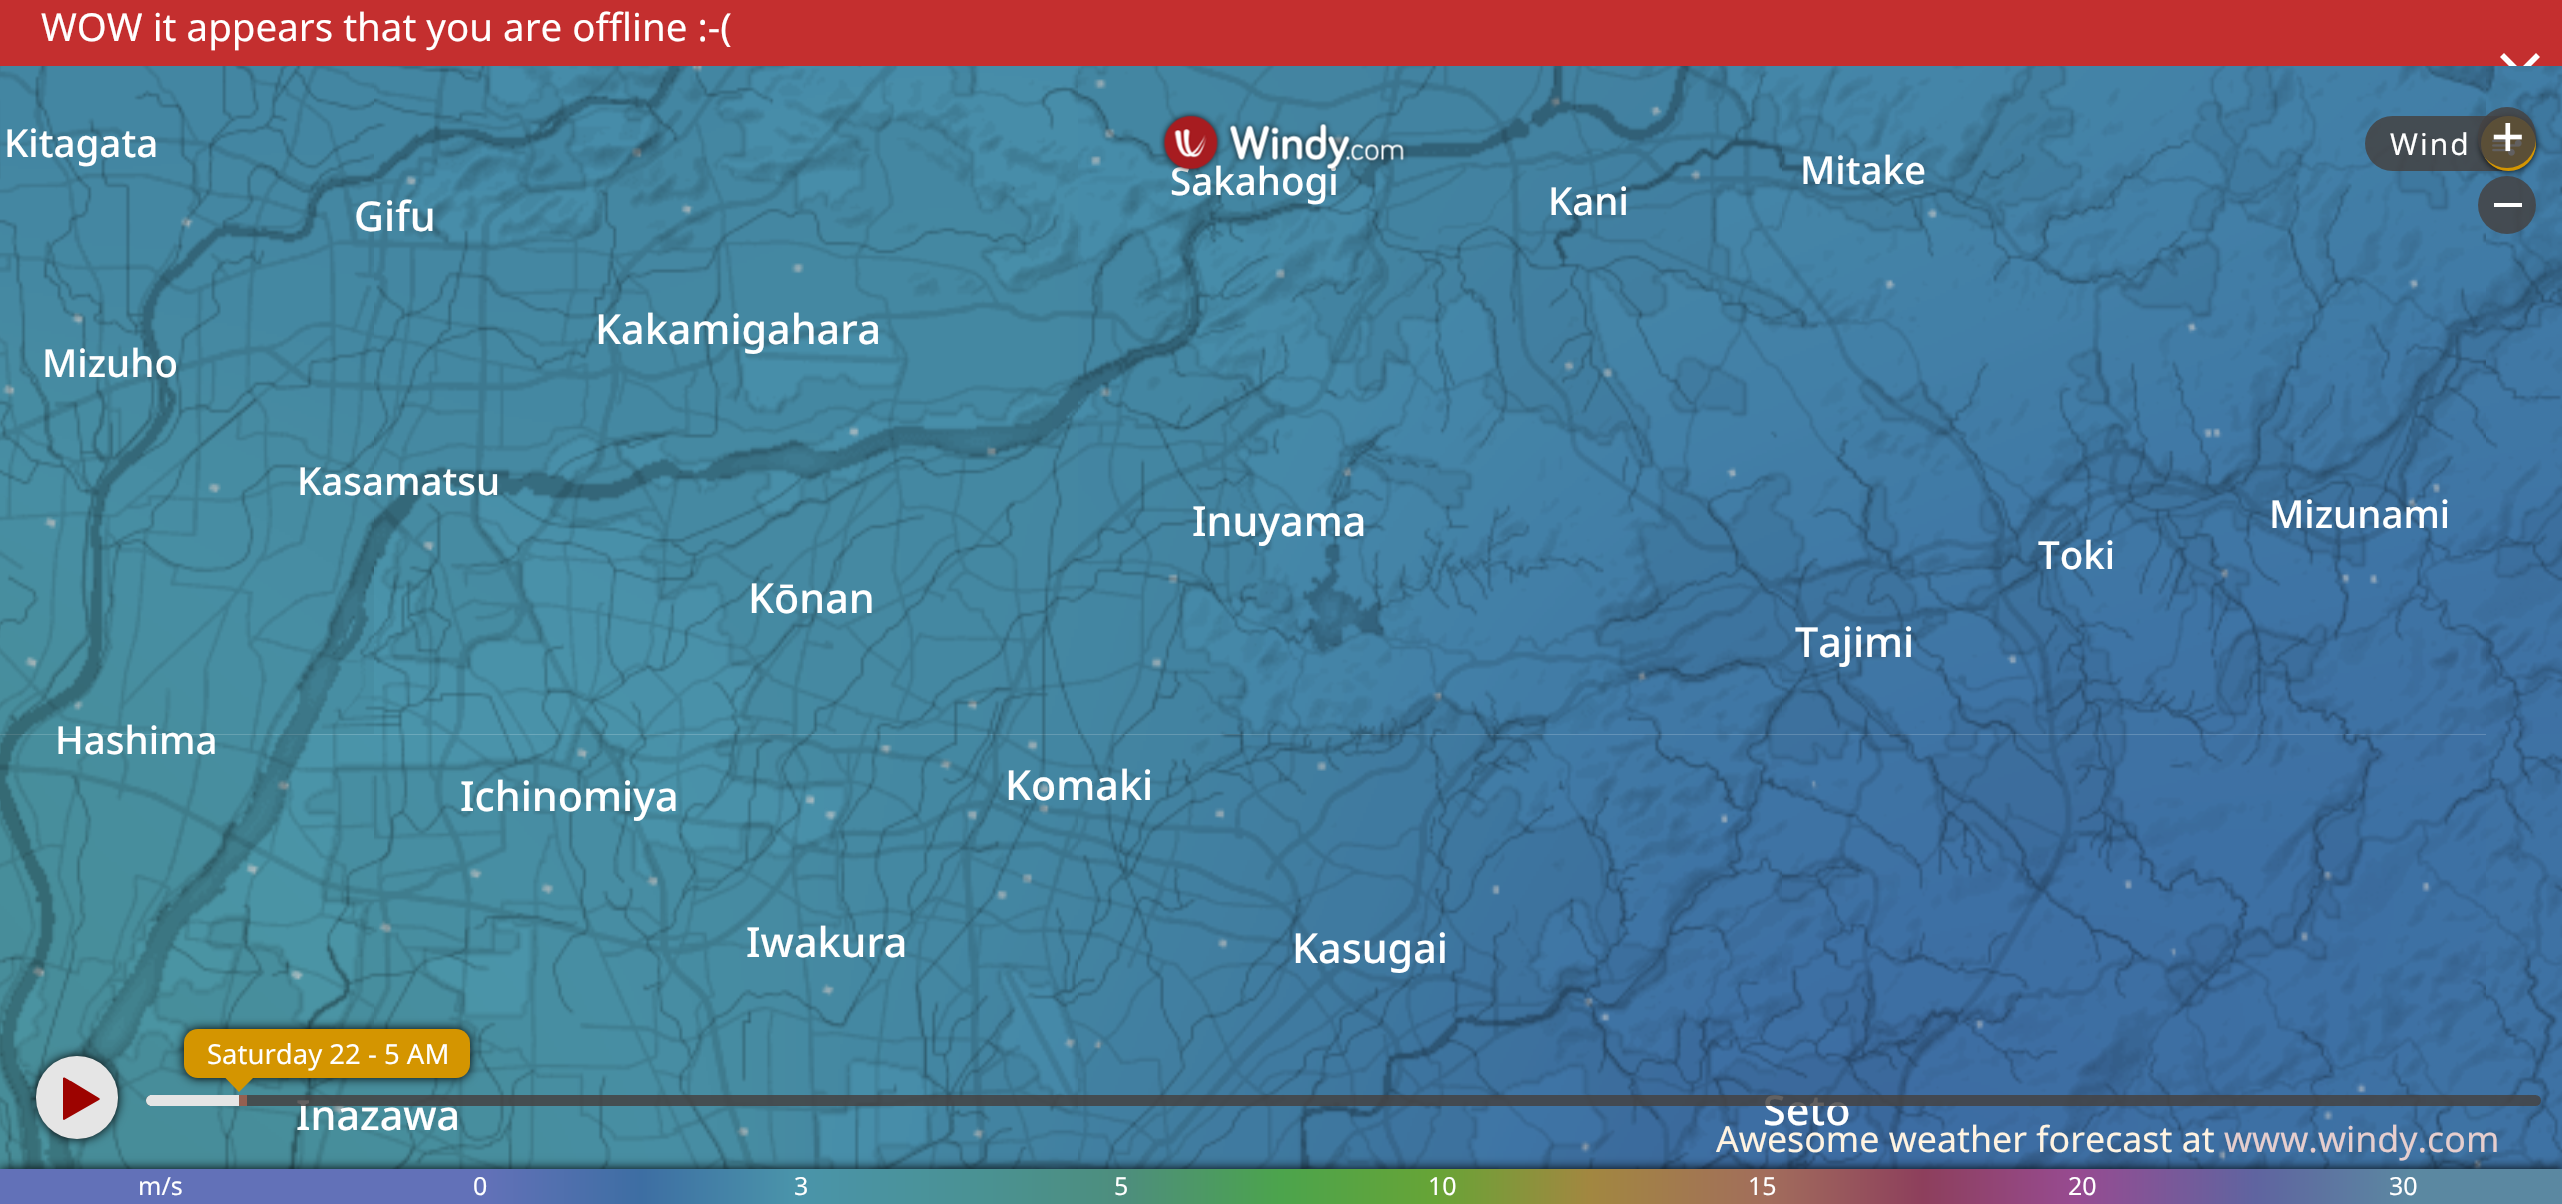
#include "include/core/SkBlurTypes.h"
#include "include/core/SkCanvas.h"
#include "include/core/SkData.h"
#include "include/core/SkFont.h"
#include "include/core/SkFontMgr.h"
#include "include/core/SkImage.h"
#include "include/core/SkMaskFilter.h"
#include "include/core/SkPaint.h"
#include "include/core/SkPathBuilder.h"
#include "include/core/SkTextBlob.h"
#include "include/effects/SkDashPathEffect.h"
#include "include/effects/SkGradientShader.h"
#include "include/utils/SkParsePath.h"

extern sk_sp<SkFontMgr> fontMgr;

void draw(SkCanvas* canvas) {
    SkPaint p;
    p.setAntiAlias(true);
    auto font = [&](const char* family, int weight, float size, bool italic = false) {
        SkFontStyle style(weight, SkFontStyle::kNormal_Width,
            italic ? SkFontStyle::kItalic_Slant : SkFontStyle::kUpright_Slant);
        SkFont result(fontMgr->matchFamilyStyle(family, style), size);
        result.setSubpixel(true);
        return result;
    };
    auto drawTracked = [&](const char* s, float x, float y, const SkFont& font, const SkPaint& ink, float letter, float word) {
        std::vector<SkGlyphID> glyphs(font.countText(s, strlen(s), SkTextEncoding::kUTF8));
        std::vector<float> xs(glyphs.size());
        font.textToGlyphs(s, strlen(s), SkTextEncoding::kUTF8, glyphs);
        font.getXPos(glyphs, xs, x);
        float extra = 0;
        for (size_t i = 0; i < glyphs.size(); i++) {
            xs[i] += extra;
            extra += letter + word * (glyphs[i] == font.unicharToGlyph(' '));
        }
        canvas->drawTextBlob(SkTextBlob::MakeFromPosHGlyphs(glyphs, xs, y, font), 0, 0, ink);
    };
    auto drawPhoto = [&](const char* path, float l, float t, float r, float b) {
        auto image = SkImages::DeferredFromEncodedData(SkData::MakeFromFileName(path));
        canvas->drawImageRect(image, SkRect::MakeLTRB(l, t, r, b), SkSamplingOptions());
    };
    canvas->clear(0xFFFFFFFF);
    p.setColor(0xFFC42F2F);
    canvas->drawRect(SkRect::MakeLTRB(0, 0, 2562, 66), p);
    auto font1 = font("Noto Sans", 400, 38.5f);
    p.setColor(0xFFFFFFFF);
    canvas->drawString("WOW it appears that you are offline :-(", 41, 41, font1, p);
    canvas->save();
    canvas->clipRect(SkRect::MakeLTRB(0, 0, 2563, 66));
    canvas->drawPath(SkPathBuilder().moveTo(2540, 57).lineTo(2536, 53).lineTo(2520, 69).lineTo(2504, 53).lineTo(2500, 57).lineTo(2516, 73).lineTo(2500, 89).lineTo(2504, 93).lineTo(2520, 77).lineTo(2536, 93).lineTo(2540, 89).lineTo(2524, 73).close().detach(), p);
    canvas->restore();
    drawPhoto("media/6.png", 1078, 66, 1782, 735);
    drawPhoto("media/4.png", 0, 66, 374, 735);
    drawPhoto("media/5.png", 374, 66, 1078, 735);
    drawPhoto("media/7.png", 1782, 66, 2486, 735);
    drawPhoto("media/9.png", 0, 734, 374, 1169);
    drawPhoto("media/10.png", 374, 734, 1078, 1169);
    drawPhoto("media/11.png", 1078, 734, 1782, 1169);
    drawPhoto("media/12.png", 1782, 734, 2486, 1169);
    drawPhoto("media/23.png", 2, 66, 2482, 1169);
    drawPhoto("media/15.png", 1078, 66, 1782, 734);
    auto font2 = font("Noto Sans", 500, 38.5f);
    canvas->drawString("Sakahogi", 1170, 195, font2, p);
    drawPhoto("media/1.png", 1159, 110, 1223, 175);
    drawPhoto("media/2.png", 1225, 120, 1408, 174);
    drawPhoto("media/8.png", 2486, 66, 2562, 734);
    drawPhoto("media/16.png", 1782, 66, 2486, 734);
    drawPhoto("media/17.png", 2486, 66, 2562, 734);
    p.setColor(0xD6444141);
    canvas->drawRoundRect(SkRect::MakeLTRB(2365, 116, 2536, 171), 27.5f, 27.5f, p);
    canvas->save();
    canvas->clipPath(SkPathBuilder(SkPathFillType::kEvenOdd).moveTo(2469, 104).lineTo(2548, 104).lineTo(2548, 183).lineTo(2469, 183).close().moveTo(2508.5f, 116).cubicTo(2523.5f, 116, 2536, 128.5f, 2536, 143.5f).cubicTo(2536, 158.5f, 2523.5f, 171, 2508.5f, 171).cubicTo(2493.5f, 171, 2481, 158.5f, 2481, 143.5f).cubicTo(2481, 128.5f, 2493.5f, 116, 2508.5f, 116).close().detach(), true);
    p.setColor(0xFF000000);
    p.setMaskFilter(SkMaskFilter::MakeBlur(kNormal_SkBlurStyle, 3.5f));
    canvas->drawRoundRect(SkRect::MakeLTRB(2481, 116, 2536, 171), 27.5f, 27.5f, p);
    p.setMaskFilter(nullptr);
    canvas->restore();
    p.setColor(0xFFD49500);
    canvas->drawCircle(2508.5f, 143.5f, 27.5f, p);
    drawPhoto("media/24.png", 2492, 139, 2522, 156);
    p.setColor(0xD6444141);
    canvas->drawRoundRect(SkRect::MakeLTRB(2478, 107, 2536, 168), 29, 29, p);
    drawPhoto("media/3.png", 2493, 123, 2522, 152);
    canvas->drawCircle(2507, 205, 29, p);
    p.setColor(0xFFFFFFFF);
    canvas->drawRect(SkRect::MakeLTRB(2494, 203, 2522, 207), p);
    p.setColor(0xFF3E72A4);
    canvas->drawRect(SkRect::MakeLTRB(2486, 734, 2562, 1169), p);
    drawPhoto("media/13.png", 0, 66, 374, 734);
    drawPhoto("media/14.png", 374, 66, 1078, 734);
    drawPhoto("media/18.png", 0, 734, 374, 1169);
    drawPhoto("media/19.png", 374, 734, 1078, 1169);
    drawPhoto("media/20.png", 1078, 734, 1782, 1169);
    drawPhoto("media/21.png", 1782, 734, 2486, 1169);
    drawPhoto("media/22.png", 2486, 734, 2562, 1169);
    p.setColor(0xFFFFFFFF);
    canvas->drawString("Kitagata", 4, 157, font2, p);
    canvas->drawString("Mizuho", 42, 377, font2, p);
    auto font3 = font("Noto Sans", 500, 41.25f);
    canvas->drawString("Gifu", 354, 231, font3, p);
    canvas->drawString("Kakamigahara", 595, 344, font3, p);
    canvas->drawString("Kasamatsu", 297, 495, font2, p);
    canvas->drawString("Kōnan", 748, 613, font3, p);
    canvas->drawString("Kani", 1548, 215, font2, p);
    canvas->drawString("Inuyama", 1192, 536, font3, p);
    {
        const struct { const char* s; float x, y; } items[] = {
            {"Mitake", 1800, 184},
            {"Mizunami", 2269, 528},
            {"Toki", 2038, 569},
        };
        for (auto [s, x, y] : items) {
            canvas->drawString(s, x, y, font2, p);
        }
    }
    canvas->drawString("Tajimi", 1795, 657, font3, p);
    canvas->drawString("Hashima", 55, 754, font2, p);
    {
        const struct { const char* s; float x, y; } items[] = {
            {"Ichinomiya", 460, 811},
            {"Iwakura", 746, 957},
            {"Inazawa", 296, 1130},
            {"Komaki", 1005, 800},
            {"Kasugai", 1292, 963},
            {"Seto", 1763, 1125},
        };
        for (auto [s, x, y] : items) {
            canvas->drawString(s, x, y, font3, p);
        }
    }
    auto font4 = font("Noto Sans", 400, 30);
    drawTracked("Wind", 2390, 155, font4, p, 2, 0);
    p.setColor(0xFF000000);
    p.setMaskFilter(SkMaskFilter::MakeBlur(kNormal_SkBlurStyle, 5.5f));
    canvas->drawRoundRect(SkRect::MakeLTRB(36, 1056, 118, 1139), 41, 41, p);
    p.setMaskFilter(nullptr);
    p.setColor(0xFFE5E5E5);
    canvas->drawRoundRect(SkRect::MakeLTRB(36, 1056, 118, 1139), 41, 41, p);
    p.setColor(0xFF9D0300);
    canvas->drawPath(SkPathBuilder().moveTo(100, 1099).lineTo(99, 1098).lineTo(71, 1081).cubicTo(68, 1080, 64, 1076, 63, 1078).lineTo(63, 1119).cubicTo(63, 1119, 63, 1120, 64, 1120).lineTo(99, 1100).close().detach(), p);
    p.setColor(0xFF000000);
    p.setMaskFilter(SkMaskFilter::MakeBlur(kNormal_SkBlurStyle, 5.5f));
    canvas->drawRoundRect(SkRect::MakeLTRB(184, 1029, 470, 1078), 14, 14, p);
    p.setMaskFilter(nullptr);
    p.setColor(0xFFD49500);
    canvas->drawRoundRect(SkRect::MakeLTRB(184, 1029, 470, 1078), 14, 14, p);
    auto font5 = font("Noto Sans", 400, 27.5f);
    p.setColor(0xFFFFFFFF);
    canvas->drawString("Saturday 22 - 5 AM", 207, 1064, font5, p);
    p.setColor(0xFFD49500);
    canvas->drawPath(SkPathBuilder().moveTo(225.5f, 1078).lineTo(253, 1078).lineTo(239, 1092).close().detach(), p);
    p.setColor(0xD6444141);
    canvas->drawRoundRect(SkRect::MakeLTRB(146, 1095, 2541, 1106), 5.5f, 5.5f, p);
    p.setColor(0xFFE5E5E5);
    canvas->drawPath(SkPathBuilder().moveTo(151.5f, 1095).lineTo(239, 1095).lineTo(239, 1106).lineTo(151.5f, 1106).cubicTo(148.5f, 1106, 146, 1103.5f, 146, 1100.5f).cubicTo(146, 1097.5f, 148.5f, 1095, 151.5f, 1095).close().detach(), p);
    p.setColor(0xFF946051);
    canvas->drawRect(SkRect::MakeLTRB(239, 1095, 247, 1106), p);
    p.setColor(0xFF000000);
    p.setMaskFilter(SkMaskFilter::MakeBlur(kNormal_SkBlurStyle, 5.5f));
    canvas->drawRect(SkRect::MakeLTRB(0, 1169, 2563, 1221), p);
    p.setMaskFilter(nullptr);
    auto font6 = font("Noto Sans", 400, 35.75f);
    p.setColor(0xFFFFF3E1);
    canvas->drawString("Awesome weather forecast at", 1716, 1152, font6, p);
    p.setColor(0xFFE6CECE);
    canvas->drawString("www.windy.com", 2224, 1152, font6, p);
    {
        const SkColor colors[] = {0xFF6271B8, 0xFF6271B8, 0xFF3D6EA3, 0xFF4A94AA, 0xFF4A9294, 0xFF4D8E7C, 0xFF4CA44C, 0xFF67A436, 0xFFA28740, 0xFFA26D5C, 0xFF8D3F5C, 0xFF974B91, 0xFF5F64A0, 0xFF5B88A1, 0xFF5B88A1};
        const float stops[] = {0, 0.19f, 0.25f, 0.31f, 0.38f, 0.44f, 0.5f, 0.56f, 0.62f, 0.69f, 0.75f, 0.81f, 0.88f, 0.94f, 1};
        const SkPoint ends[] = {{0, 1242}, {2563, 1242}};
        p.setShader(SkGradientShader::MakeLinear(ends, colors, stops, 15, SkTileMode::kClamp));
        p.setAlpha(255);
    }
    canvas->drawRect(SkRect::MakeLTRB(0, 1169, 2562, 1204), p);
    auto font7 = font("Noto Sans", 400, 25);
    p.setShader(nullptr);
    p.setColor(0xFFFFFFFF);
    {
        const struct { const char* s; float x, y; } items[] = {
            {"m/s", 138, 1195},
            {"0", 473, 1195},
            {"3", 794, 1195},
            {"5", 1114, 1195},
            {"10", 1428, 1195},
            {"15", 1748, 1195},
            {"20", 2068, 1195},
            {"30", 2389, 1195},
        };
        for (auto [s, x, y] : items) {
            canvas->drawString(s, x, y, font7, p);
        }
    }
}
